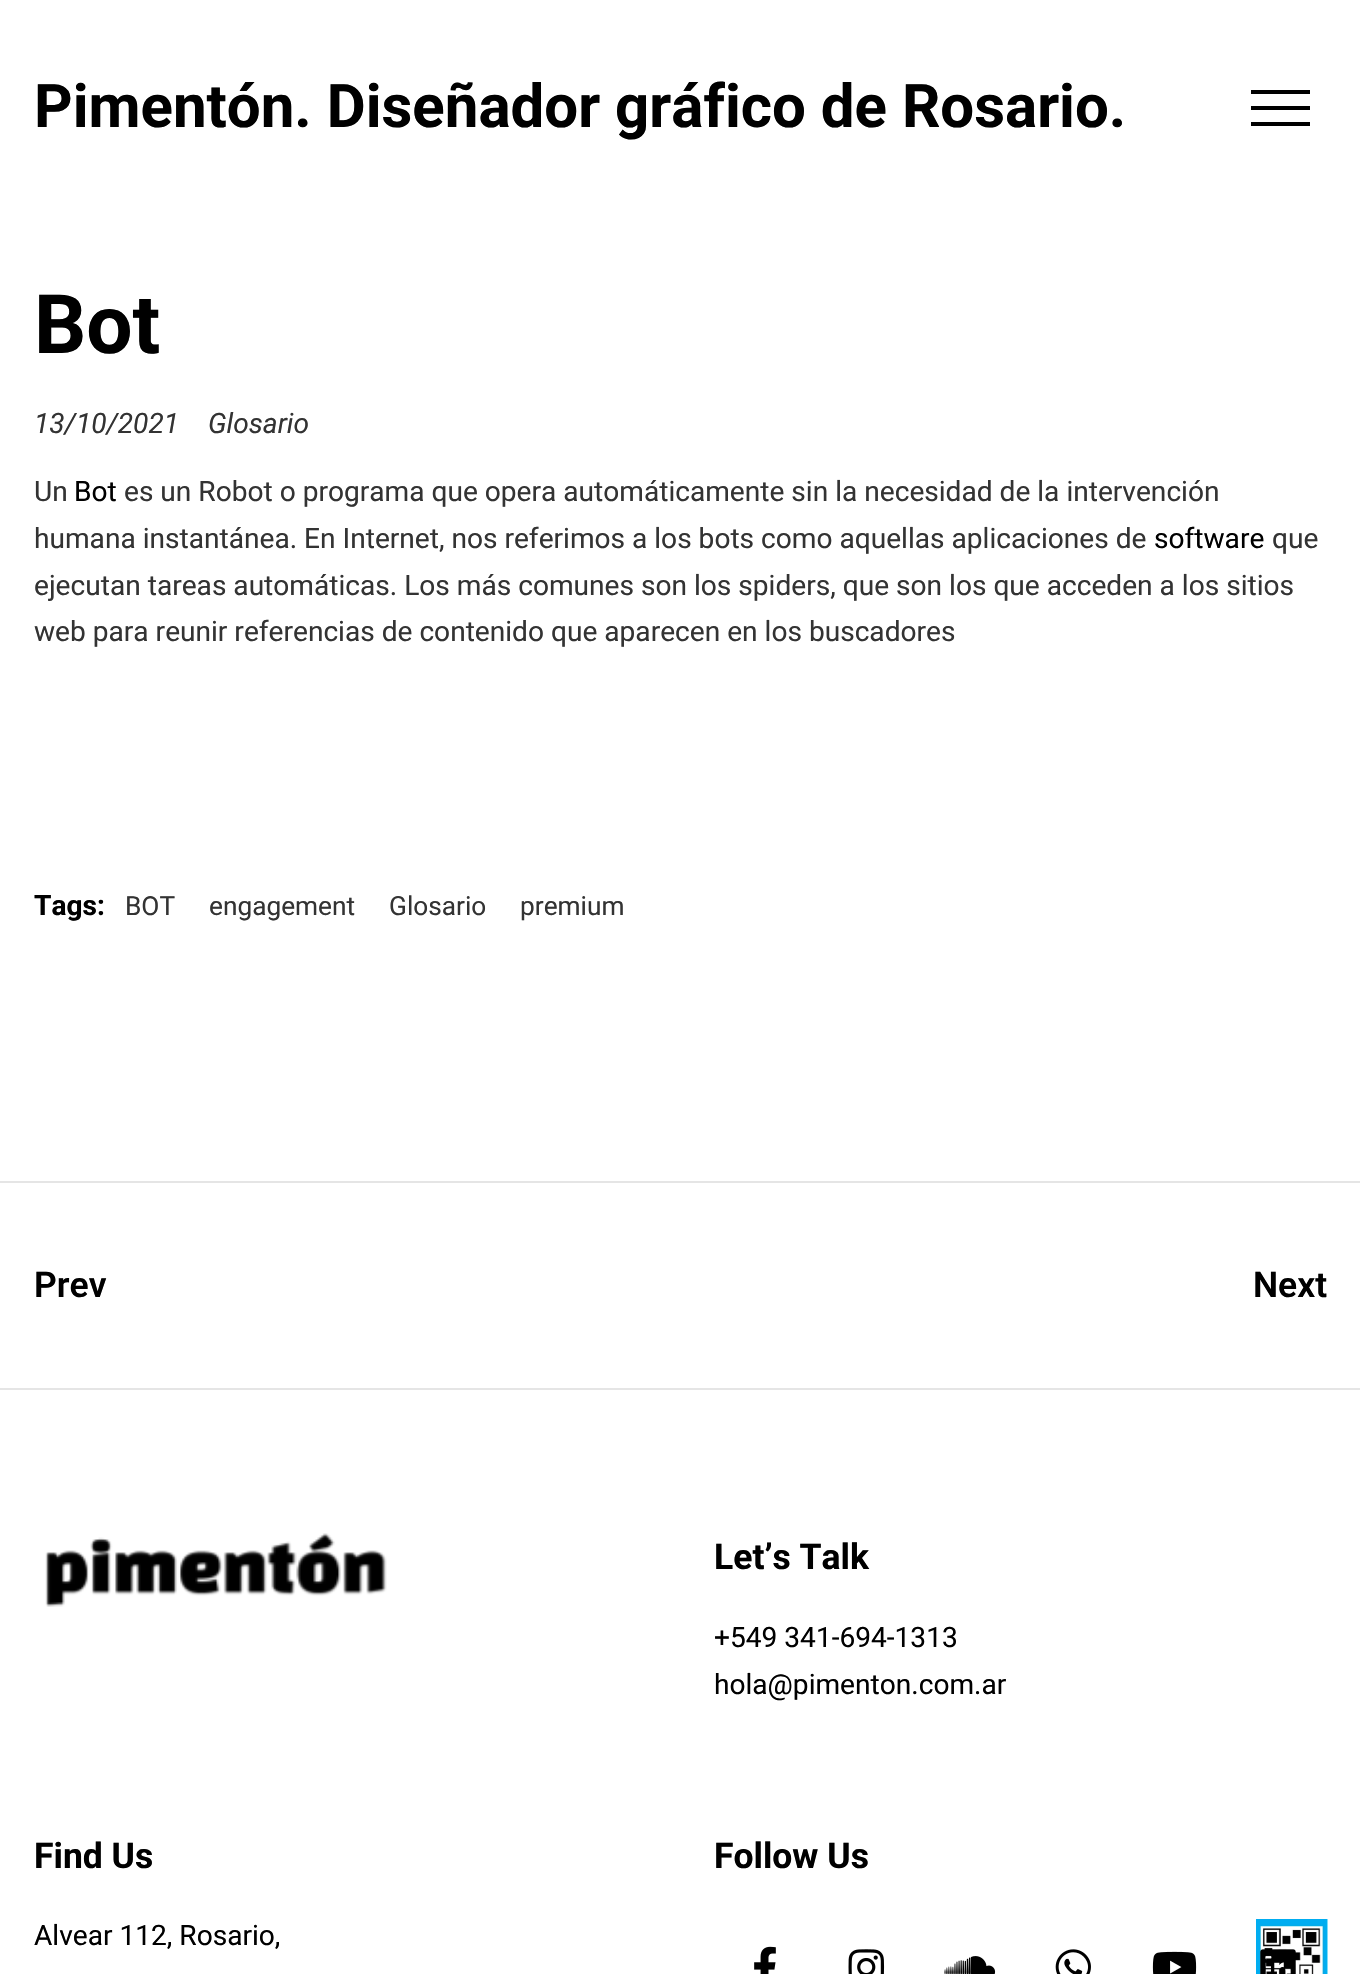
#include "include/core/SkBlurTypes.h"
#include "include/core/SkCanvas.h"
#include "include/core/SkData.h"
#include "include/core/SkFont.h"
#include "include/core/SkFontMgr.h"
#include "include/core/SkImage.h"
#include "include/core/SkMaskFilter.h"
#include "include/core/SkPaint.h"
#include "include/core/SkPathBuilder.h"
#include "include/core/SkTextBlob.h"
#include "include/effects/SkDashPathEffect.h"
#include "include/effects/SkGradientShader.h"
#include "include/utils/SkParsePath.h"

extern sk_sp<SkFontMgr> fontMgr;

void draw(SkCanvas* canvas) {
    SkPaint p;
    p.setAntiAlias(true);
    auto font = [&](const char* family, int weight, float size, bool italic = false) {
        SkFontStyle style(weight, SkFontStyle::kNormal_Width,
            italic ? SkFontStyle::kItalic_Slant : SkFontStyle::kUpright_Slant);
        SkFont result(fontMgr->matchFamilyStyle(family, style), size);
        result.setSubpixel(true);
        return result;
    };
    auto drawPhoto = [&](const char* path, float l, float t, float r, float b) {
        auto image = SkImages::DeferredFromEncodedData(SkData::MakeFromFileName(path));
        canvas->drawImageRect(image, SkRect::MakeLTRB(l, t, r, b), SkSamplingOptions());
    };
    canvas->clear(0xFFFFFFFF);
    auto font1 = font("Roboto", 700, 60);
    p.setColor(0xFF000000);
    canvas->drawString("Pimentón. Diseñador gráfico de Rosario.", 34, 127, font1, p);
    {
        const struct { float l, t, r, b; SkColor color; } items[] = {
            {1251, 90, 1310, 94, 0xFF000000},
            {1251, 122, 1310, 126, 0xFF000000},
            {1251, 106, 1310, 110, 0xFF000000},
        };
        for (auto [l, t, r, b, color] : items) {
            p.setColor(color);
            canvas->drawRect(SkRect::MakeLTRB(l, t, r, b), p);
        }
    }
    auto font2 = font("Roboto", 700, 82);
    canvas->drawString("Bot", 34, 353, font2, p);
    auto font3 = font("Roboto", 400, 28.1f, true);
    p.setColor(0xFF333333);
    canvas->drawString("13/10/2021", 34, 433, font3, p);
    canvas->drawString("Glosario", 208, 433, font3, p);
    auto font4 = font("Roboto", 400, 28.1f);
    canvas->drawString("Un", 34, 501, font4, p);
    p.setColor(0xFF000000);
    canvas->drawString("Bot", 74, 501, font4, p);
    p.setColor(0xFF333333);
    canvas->drawString("es un Robot o programa que opera automáticamente sin la necesidad de la intervención", 124, 501, font4, p);
    canvas->drawString("humana instantánea. En Internet, nos referimos a los bots como aquellas aplicaciones de", 34, 548, font4, p);
    p.setColor(0xFF000000);
    canvas->drawString("software", 1154, 548, font4, p);
    p.setColor(0xFF333333);
    {
        const struct { const char* s; float x, y; } items[] = {
            {"que", 1272, 548},
            {"ejecutan tareas automáticas. Los más comunes son los spiders, que son los que acceden a los sitios", 34, 595},
            {"web para reunir referencias de contenido que aparecen en los buscadores", 34, 641},
        };
        for (auto [s, x, y] : items) {
            canvas->drawString(s, x, y, font4, p);
        }
    }
    auto font5 = font("Roboto", 700, 28.1f);
    p.setColor(0xFF000000);
    canvas->drawString("Tags:", 34, 915, font5, p);
    auto font6 = font("Roboto", 400, 26.25f);
    p.setColor(0xFF333333);
    {
        const struct { const char* s; float x, y; } items[] = {
            {"BOT", 125, 915},
            {"engagement", 209, 915},
            {"Glosario", 389, 915},
            {"premium", 520, 915},
        };
        for (auto [s, x, y] : items) {
            canvas->drawString(s, x, y, font6, p);
        }
    }
    p.setColor(0xFFE5E5E5);
    canvas->drawRect(SkRect::MakeLTRB(0, 1181, 1360, 1183), p);
    auto font7 = font("Roboto", 600, 35.5f);
    p.setColor(0xFF000000);
    canvas->drawString("Prev", 34, 1297, font7, p);
    canvas->drawString("Next", 1253, 1297, font7, p);
    p.setColor(0xFFE5E5E5);
    canvas->drawRect(SkRect::MakeLTRB(0, 1388, 1360, 1390), p);
    drawPhoto("media/1.png", 45, 1533, 387, 1607);
    auto font8 = font("Roboto", 700, 35.5f);
    p.setColor(0xFF000000);
    canvas->drawString("Let’s Talk", 714, 1569, font8, p);
    canvas->drawString("+549 341-694-1313", 714, 1647, font4, p);
    canvas->drawString("hola@pimenton.com.ar", 714, 1694, font4, p);
    canvas->drawString("Find Us", 34, 1868, font8, p);
    canvas->drawString("Alvear 112, Rosario,", 34, 1945, font4, p);
    canvas->drawString("Follow Us", 714, 1868, font8, p);
    drawPhoto("media/2.png", 1256, 1919, 1328, 1974);
    drawPhoto("media/3.png", 754, 1946, 776, 1974);
    drawPhoto("media/4.png", 848, 1949, 885, 1974);
    drawPhoto("media/5.png", 944, 1956, 996, 1974);
    drawPhoto("media/6.png", 1055, 1949, 1091, 1974);
    drawPhoto("media/7.png", 1152, 1951, 1197, 1974);
    drawPhoto("media/8.png", 1260, 1949, 1296, 1974);
}
